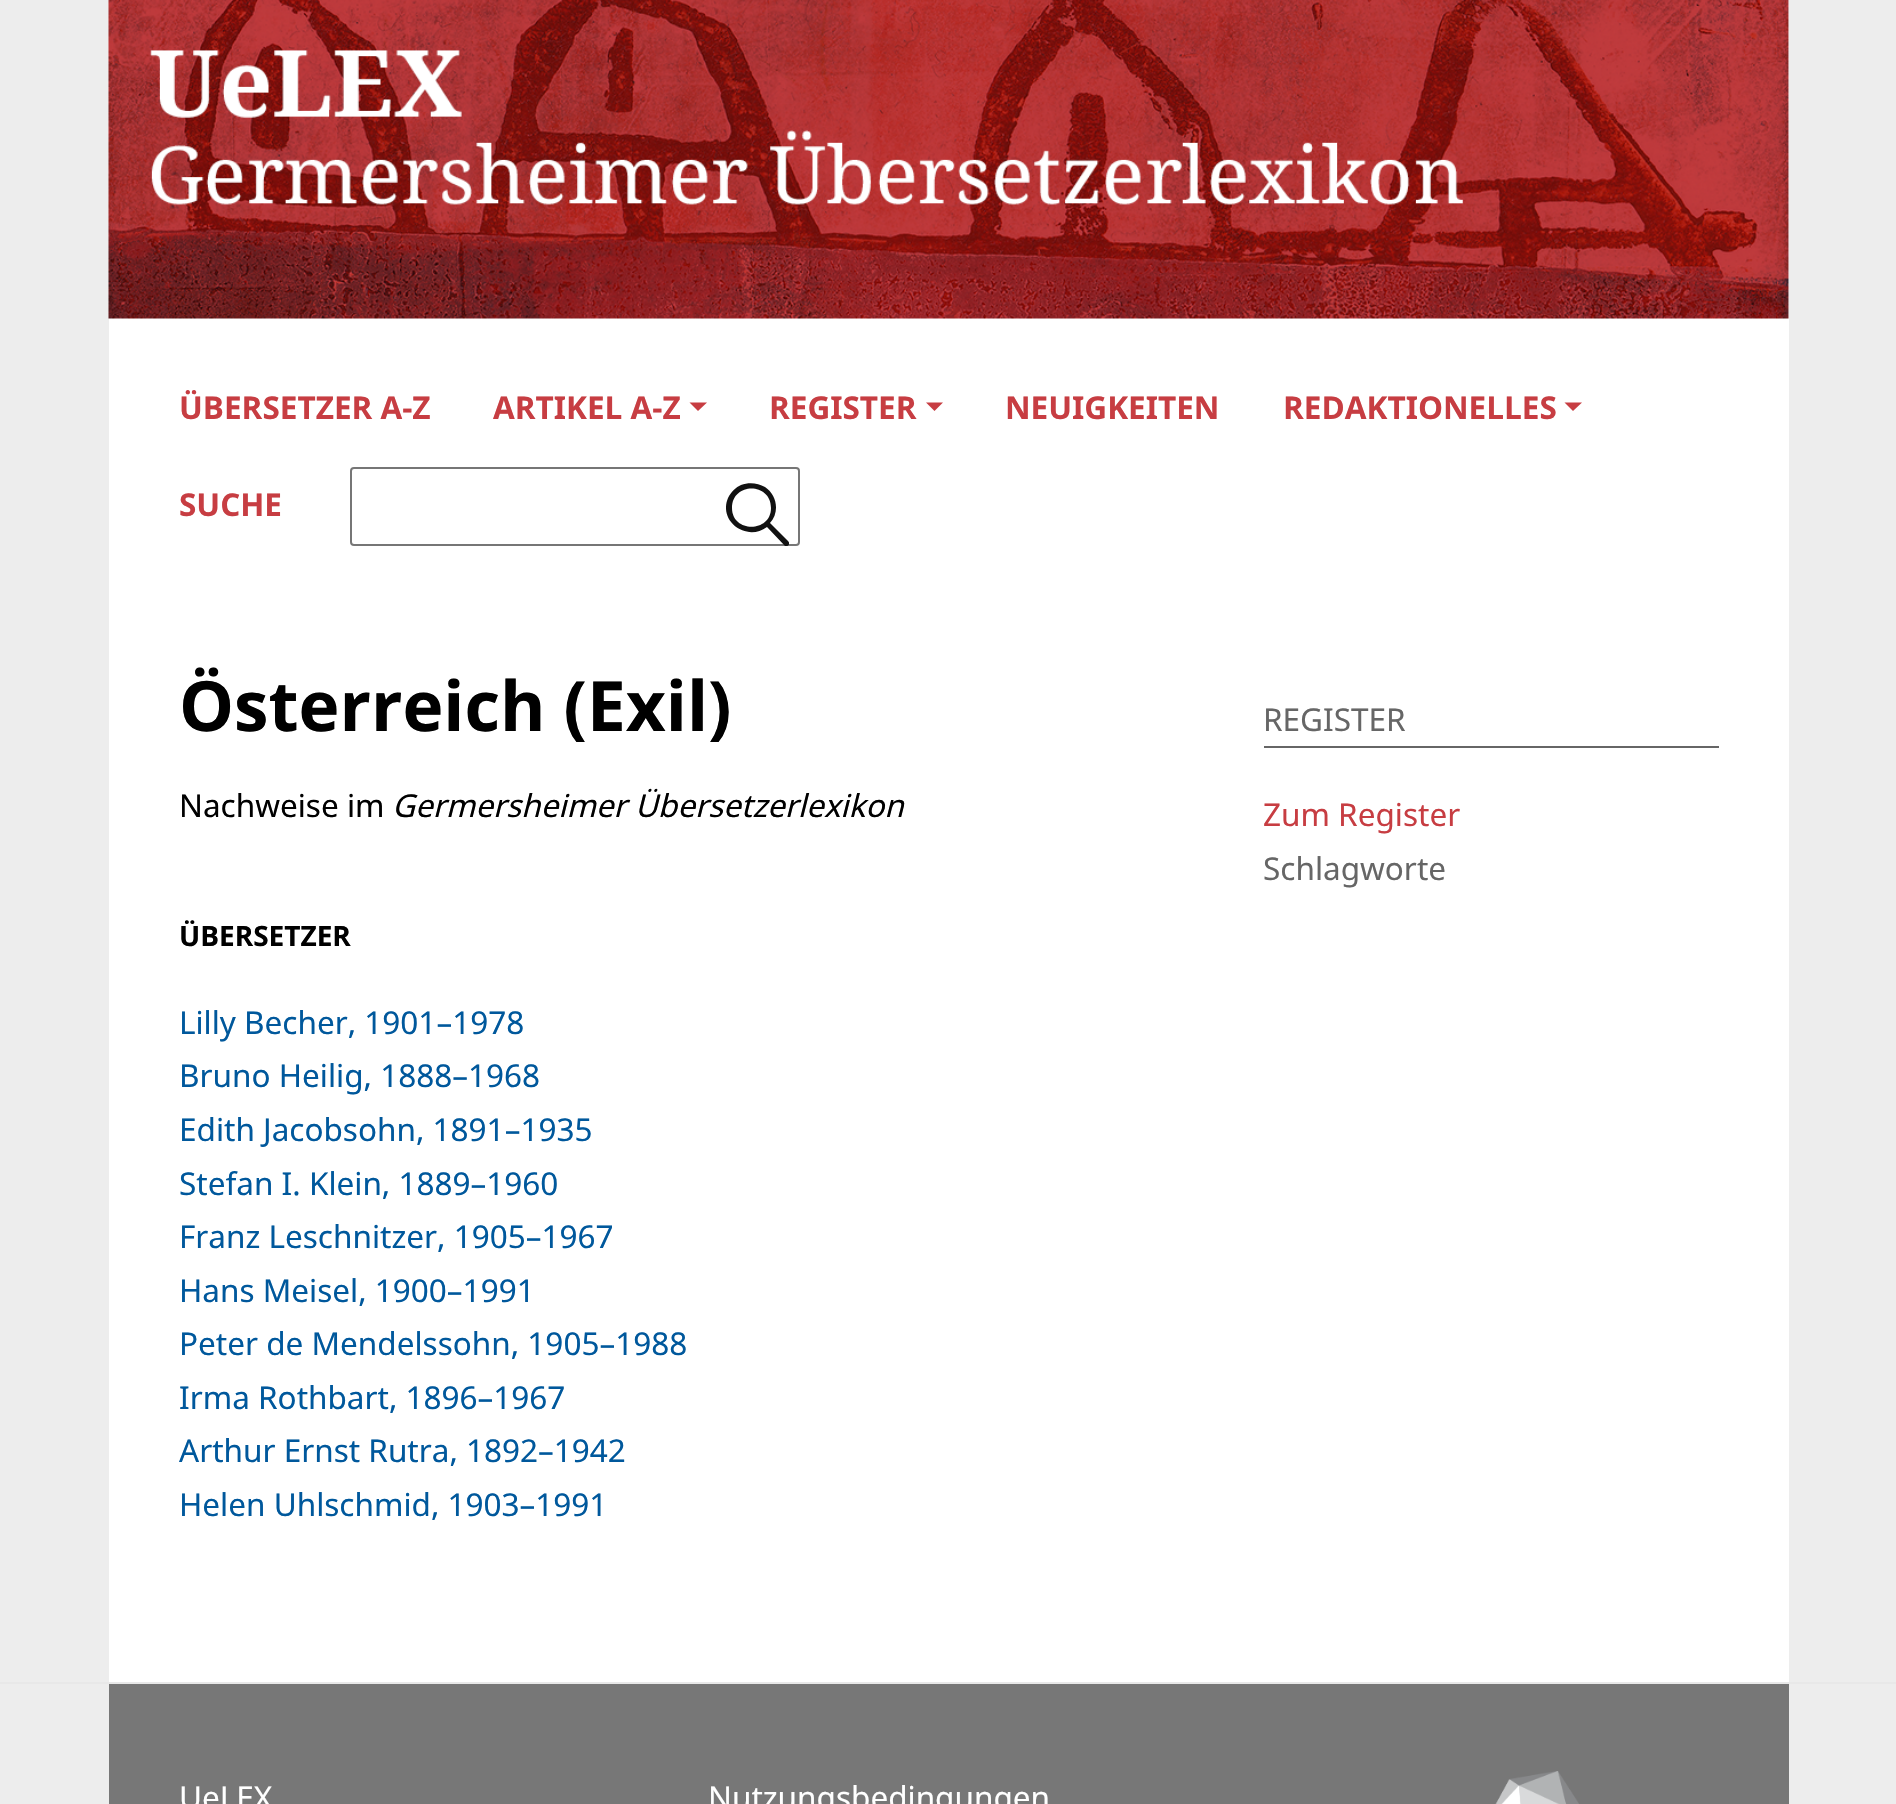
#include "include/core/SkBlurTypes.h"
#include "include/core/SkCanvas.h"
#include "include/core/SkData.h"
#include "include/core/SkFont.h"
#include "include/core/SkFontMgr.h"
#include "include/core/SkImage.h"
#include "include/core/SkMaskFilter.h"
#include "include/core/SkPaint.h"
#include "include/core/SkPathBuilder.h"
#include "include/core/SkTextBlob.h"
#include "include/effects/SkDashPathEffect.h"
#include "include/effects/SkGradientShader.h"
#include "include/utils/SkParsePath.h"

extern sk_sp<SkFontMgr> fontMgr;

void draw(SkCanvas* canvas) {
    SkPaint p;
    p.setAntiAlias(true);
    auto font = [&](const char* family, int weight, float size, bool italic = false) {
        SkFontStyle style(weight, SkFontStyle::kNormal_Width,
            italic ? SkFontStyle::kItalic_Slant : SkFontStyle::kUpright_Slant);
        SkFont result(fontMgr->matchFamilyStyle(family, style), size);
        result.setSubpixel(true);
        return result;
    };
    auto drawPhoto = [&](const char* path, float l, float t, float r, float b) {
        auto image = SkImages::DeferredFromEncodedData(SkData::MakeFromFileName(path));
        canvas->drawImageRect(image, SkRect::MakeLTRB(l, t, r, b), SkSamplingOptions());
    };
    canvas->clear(0xFFEDEDED);
    p.setColor(0xFFFFFFFF);
    canvas->drawRect(SkRect::MakeLTRB(109, 0, 1789, 1682), p);
    drawPhoto("media/1.png", 108, 0, 1789, 319);
    auto font1 = font("Noto Sans", 700, 31.5f);
    p.setColor(0xFFC73D42);
    canvas->drawString("ÜBERSETZER A-Z", 179, 419, font1, p);
    canvas->drawString("ARTIKEL A-Z", 493, 419, font1, p);
    canvas->drawPath(SkPathBuilder().moveTo(689.5f, 402.5f).lineTo(707, 402.5f).lineTo(698, 411).close().detach(), p);
    canvas->drawString("REGISTER", 769, 419, font1, p);
    canvas->drawPath(SkPathBuilder().moveTo(926, 402.5f).lineTo(943, 402.5f).lineTo(934.5f, 411).close().detach(), p);
    canvas->drawString("NEUIGKEITEN", 1005, 419, font1, p);
    canvas->drawString("REDAKTIONELLES", 1283, 419, font1, p);
    canvas->drawPath(SkPathBuilder().moveTo(1564.5f, 402.5f).lineTo(1582, 402.5f).lineTo(1573, 411).close().detach(), p);
    canvas->drawString("SUCHE", 179, 516, font1, p);
    p.setStyle(SkPaint::kStroke_Style);
    p.setStrokeWidth(2);
    p.setColor(0xFF767676);
    canvas->drawRoundRect(SkRect::MakeLTRB(351, 468, 799, 545), 3, 3, p);
    canvas->save();
    canvas->clipRect(SkRect::MakeLTRB(726, 483, 789, 546));
    p.setStyle(SkPaint::kFill_Style);
    p.setColor(0xFF111111);
    canvas->drawPath(SkPathBuilder().moveTo(788, 541).lineTo(770, 523).cubicTo(780, 512, 777, 495, 765, 487).cubicTo(758, 483, 749, 482, 741, 485).cubicTo(736, 487, 731, 492, 728, 498).cubicTo(718, 522, 747, 542, 767, 527).lineTo(785, 546).cubicTo(788, 547, 791, 544, 788, 541).close().moveTo(732, 508).cubicTo(732, 482, 771, 482, 771, 508).cubicTo(771, 533, 732, 533, 732, 508).close().detach(), p);
    canvas->restore();
    auto font2 = font("Noto Sans", 700, 69.25f);
    p.setColor(0xFF000000);
    canvas->drawString("Österreich (Exil)", 179, 731, font2, p);
    auto font3 = font("Noto Sans", 400, 31.5f);
    canvas->drawString("Nachweise im", 179, 817, font3, p);
    auto font4 = font("Noto Sans", 400, 31.5f, true);
    canvas->drawString("Germersheimer Übersetzerlexikon", 392, 817, font4, p);
    auto font5 = font("Noto Sans", 700, 28);
    canvas->drawString("ÜBERSETZER", 179, 946, font5, p);
    p.setColor(0xFF00589C);
    {
        const struct { const char* s; float x, y; } items[] = {
            {"Lilly Becher, 1901–1978", 179, 1034},
            {"Bruno Heilig, 1888–1968", 179, 1087},
            {"Edith Jacobsohn, 1891–1935", 179, 1141},
            {"Stefan I. Klein, 1889–1960", 179, 1195},
            {"Franz Leschnitzer, 1905–1967", 179, 1248},
            {"Hans Meisel, 1900–1991", 179, 1302},
            {"Peter de Mendelssohn, 1905–1988", 179, 1355},
            {"Irma Rothbart, 1896–1967", 179, 1409},
            {"Arthur Ernst Rutra, 1892–1942", 179, 1462},
            {"Helen Uhlschmid, 1903–1991", 179, 1516},
        };
        for (auto [s, x, y] : items) {
            canvas->drawString(s, x, y, font3, p);
        }
    }
    p.setColor(0xFF666666);
    canvas->drawRect(SkRect::MakeLTRB(1264, 746, 1719, 748), p);
    canvas->drawString("REGISTER", 1263, 731, font3, p);
    p.setColor(0xFFC73D42);
    canvas->drawString("Zum Register", 1263, 826, font3, p);
    p.setColor(0xFF666666);
    canvas->drawString("Schlagworte", 1263, 880, font3, p);
    p.setColor(0xFFE8E8E8);
    canvas->drawRect(SkRect::MakeLTRB(0, 1682, 1896, 1684), p);
    p.setColor(0xFF777777);
    canvas->drawRect(SkRect::MakeLTRB(109, 1684, 1789, 1804), p);
    p.setColor(0xFFFFFFFF);
    canvas->drawString("UeLEX", 179, 1809, font3, p);
    canvas->drawString("Nutzungsbedingungen", 708, 1809, font3, p);
    drawPhoto("media/2.png", 1495, 1771, 1579, 1804);
}
